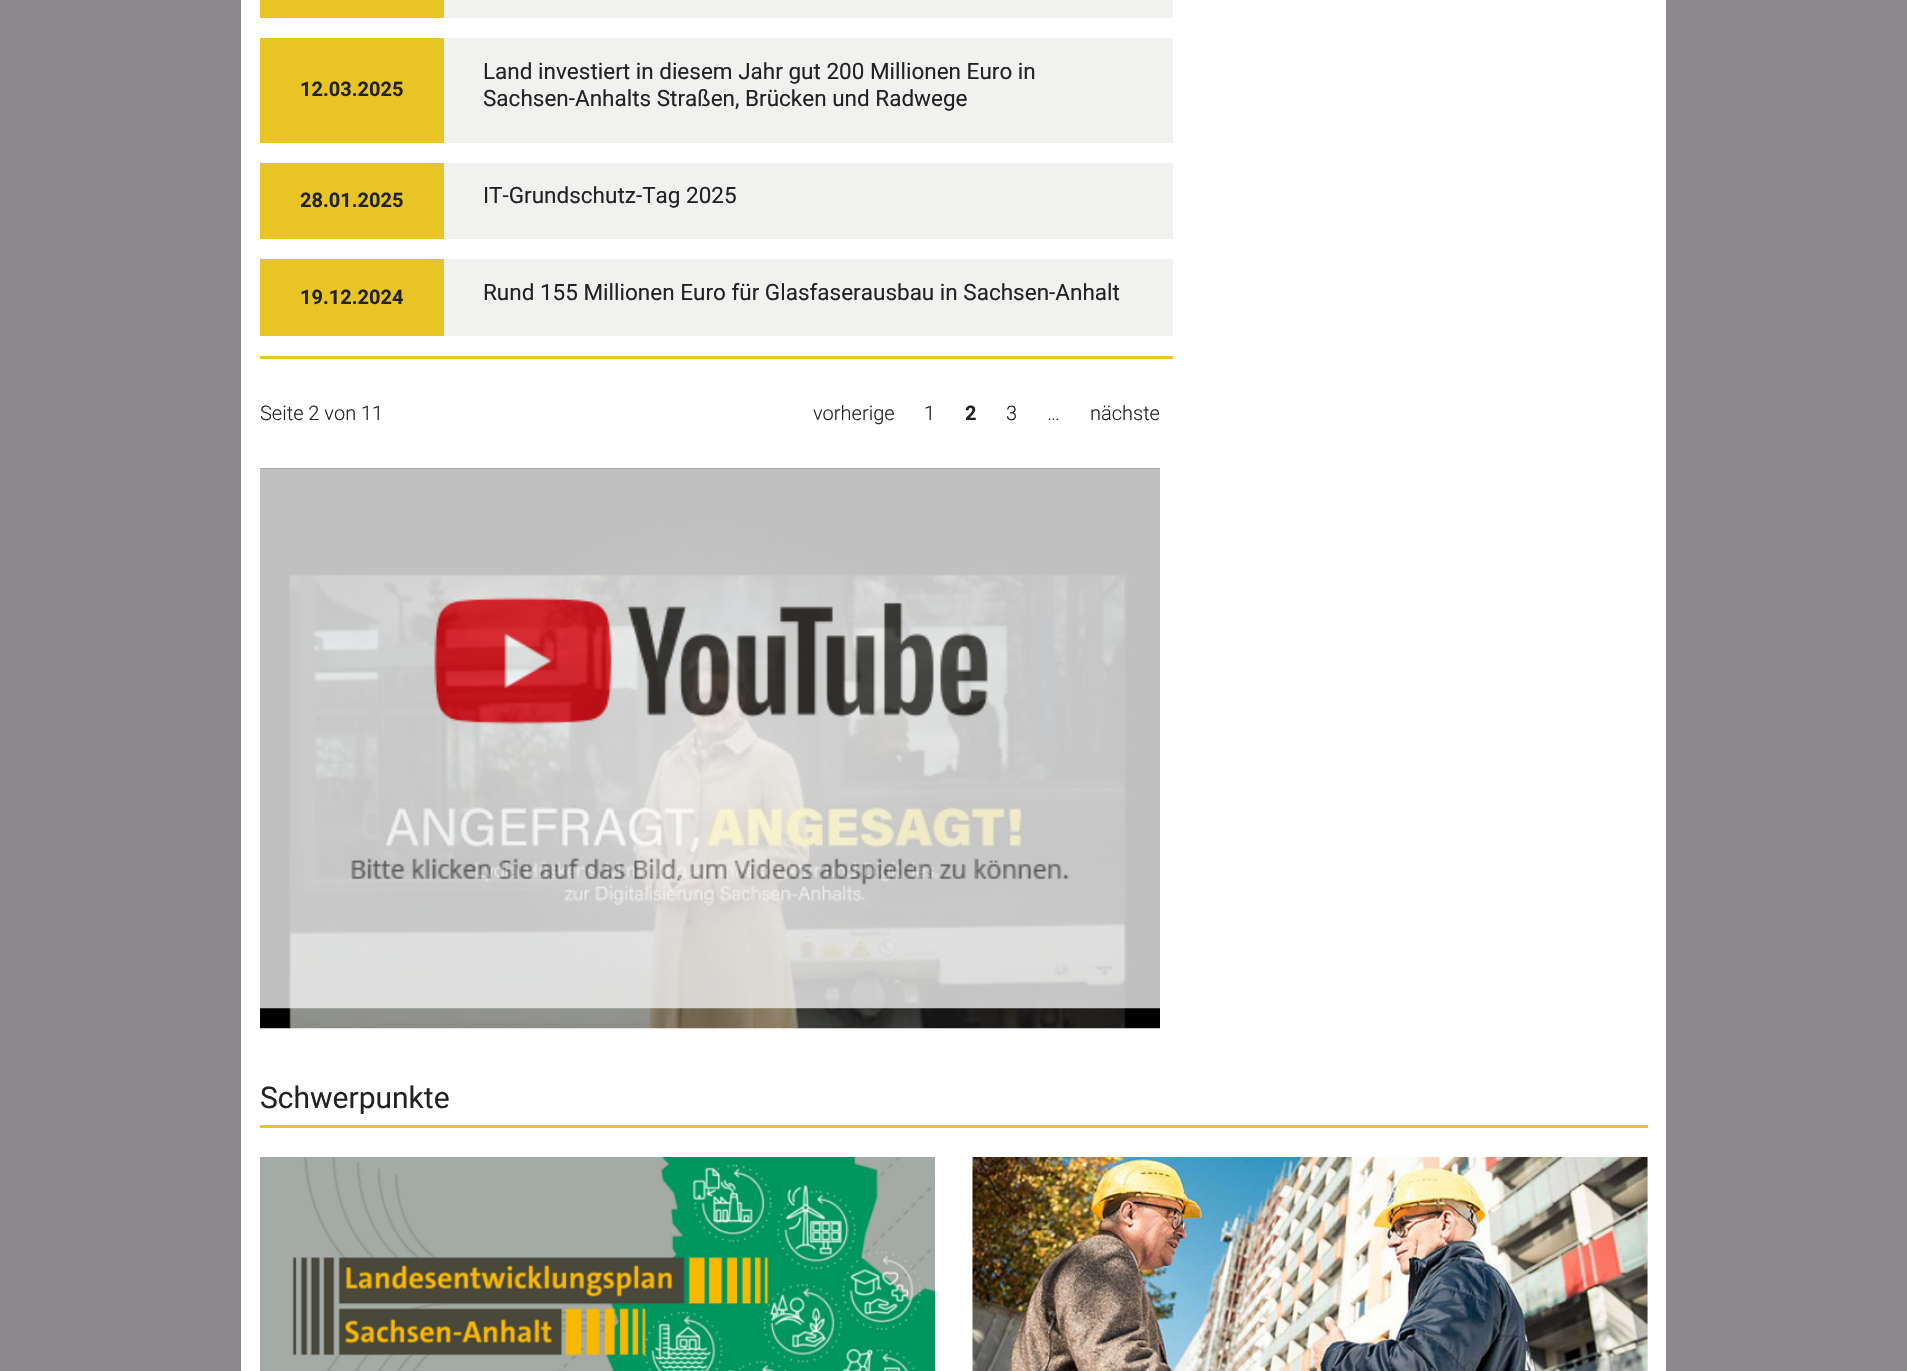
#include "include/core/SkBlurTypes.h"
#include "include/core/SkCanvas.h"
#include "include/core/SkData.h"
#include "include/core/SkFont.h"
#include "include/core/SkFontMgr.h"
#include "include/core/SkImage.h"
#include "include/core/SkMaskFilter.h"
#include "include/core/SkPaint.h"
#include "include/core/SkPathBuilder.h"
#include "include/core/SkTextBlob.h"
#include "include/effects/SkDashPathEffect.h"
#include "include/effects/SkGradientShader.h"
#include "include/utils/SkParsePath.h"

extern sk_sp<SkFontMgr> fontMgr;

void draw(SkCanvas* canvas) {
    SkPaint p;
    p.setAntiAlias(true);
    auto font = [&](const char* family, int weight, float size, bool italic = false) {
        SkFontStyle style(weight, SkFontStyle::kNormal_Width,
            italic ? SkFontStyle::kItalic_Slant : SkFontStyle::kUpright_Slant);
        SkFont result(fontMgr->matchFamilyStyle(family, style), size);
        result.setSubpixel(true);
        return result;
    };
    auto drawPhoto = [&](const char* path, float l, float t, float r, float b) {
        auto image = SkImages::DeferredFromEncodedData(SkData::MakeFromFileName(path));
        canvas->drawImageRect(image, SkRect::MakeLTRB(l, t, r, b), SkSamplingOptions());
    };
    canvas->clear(0xFF8C898C);
    {
        const struct { float l, t, r, b; SkColor color; } items[] = {
            {241, 0, 1666, 1371, 0xFFFFFFFF},
            {260, 0, 444, 18, 0xFFE8C425},
            {444, 0, 1173, 18, 0xFFF1F1F0},
            {260, 38, 444, 143, 0xFFE8C425},
        };
        for (auto [l, t, r, b, color] : items) {
            p.setColor(color);
            canvas->drawRect(SkRect::MakeLTRB(l, t, r, b), p);
        }
    }
    auto font1 = font("Roboto", 700, 20);
    p.setColor(0xFF222222);
    canvas->drawString("12.03.2025", 300, 96, font1, p);
    p.setColor(0xFFF1F1F0);
    canvas->drawRect(SkRect::MakeLTRB(444, 38, 1173, 143), p);
    auto font2 = font("Roboto", 400, 22.5f);
    p.setColor(0xFF222222);
    canvas->drawString("Land investiert in diesem Jahr gut 200 Millionen Euro in", 483, 79, font2, p);
    canvas->drawString("Sachsen-Anhalts Straßen, Brücken und Radwege", 483, 106, font2, p);
    p.setColor(0xFFE8C425);
    canvas->drawRect(SkRect::MakeLTRB(260, 163, 444, 239), p);
    p.setColor(0xFF222222);
    canvas->drawString("28.01.2025", 300, 207, font1, p);
    p.setColor(0xFFF1F1F0);
    canvas->drawRect(SkRect::MakeLTRB(444, 163, 1173, 239), p);
    p.setColor(0xFF222222);
    canvas->drawString("IT-Grundschutz-Tag 2025", 483, 203, font2, p);
    p.setColor(0xFFE8C425);
    canvas->drawRect(SkRect::MakeLTRB(260, 259, 444, 336), p);
    p.setColor(0xFF222222);
    canvas->drawString("19.12.2024", 300, 304, font1, p);
    p.setColor(0xFFF1F1F0);
    canvas->drawRect(SkRect::MakeLTRB(444, 259, 1173, 336), p);
    p.setColor(0xFF222222);
    canvas->drawString("Rund 155 Millionen Euro für Glasfaserausbau in Sachsen-Anhalt", 483, 300, font2, p);
    p.setColor(0xFFE8C425);
    canvas->drawRect(SkRect::MakeLTRB(260, 356, 1173, 359), p);
    auto font3 = font("Roboto", 300, 20);
    p.setColor(0xFF222222);
    {
        const struct { const char* s; float x, y; } items[] = {
            {"Seite 2 von 11", 260, 420},
            {"vorherige", 813, 420},
            {"1", 924, 420},
        };
        for (auto [s, x, y] : items) {
            canvas->drawString(s, x, y, font3, p);
        }
    }
    canvas->drawString("2", 965, 420, font1, p);
    {
        const struct { const char* s; float x, y; } items[] = {
            {"3", 1006, 420},
            {"…", 1047, 420},
            {"nächste", 1090, 420},
        };
        for (auto [s, x, y] : items) {
            canvas->drawString(s, x, y, font3, p);
        }
    }
    drawPhoto("media/1.png", 260, 468, 1160, 1029);
    drawPhoto("media/2.png", 260, 468, 1160, 1009);
    p.setColor(0xFFE8C425);
    canvas->drawRect(SkRect::MakeLTRB(260, 1125, 1648, 1128), p);
    auto font4 = font("Roboto", 400, 30);
    p.setColor(0xFF222222);
    canvas->drawString("Schwerpunkte", 260, 1108, font4, p);
    drawPhoto("media/3.png", 260, 1157, 935, 1371);
    p.setColor(0xFFF1F1F0);
    canvas->drawRect(SkRect::MakeLTRB(1647, 1158, 1648, 1371), p);
    drawPhoto("media/4.png", 972, 1157, 1648, 1371);
}
